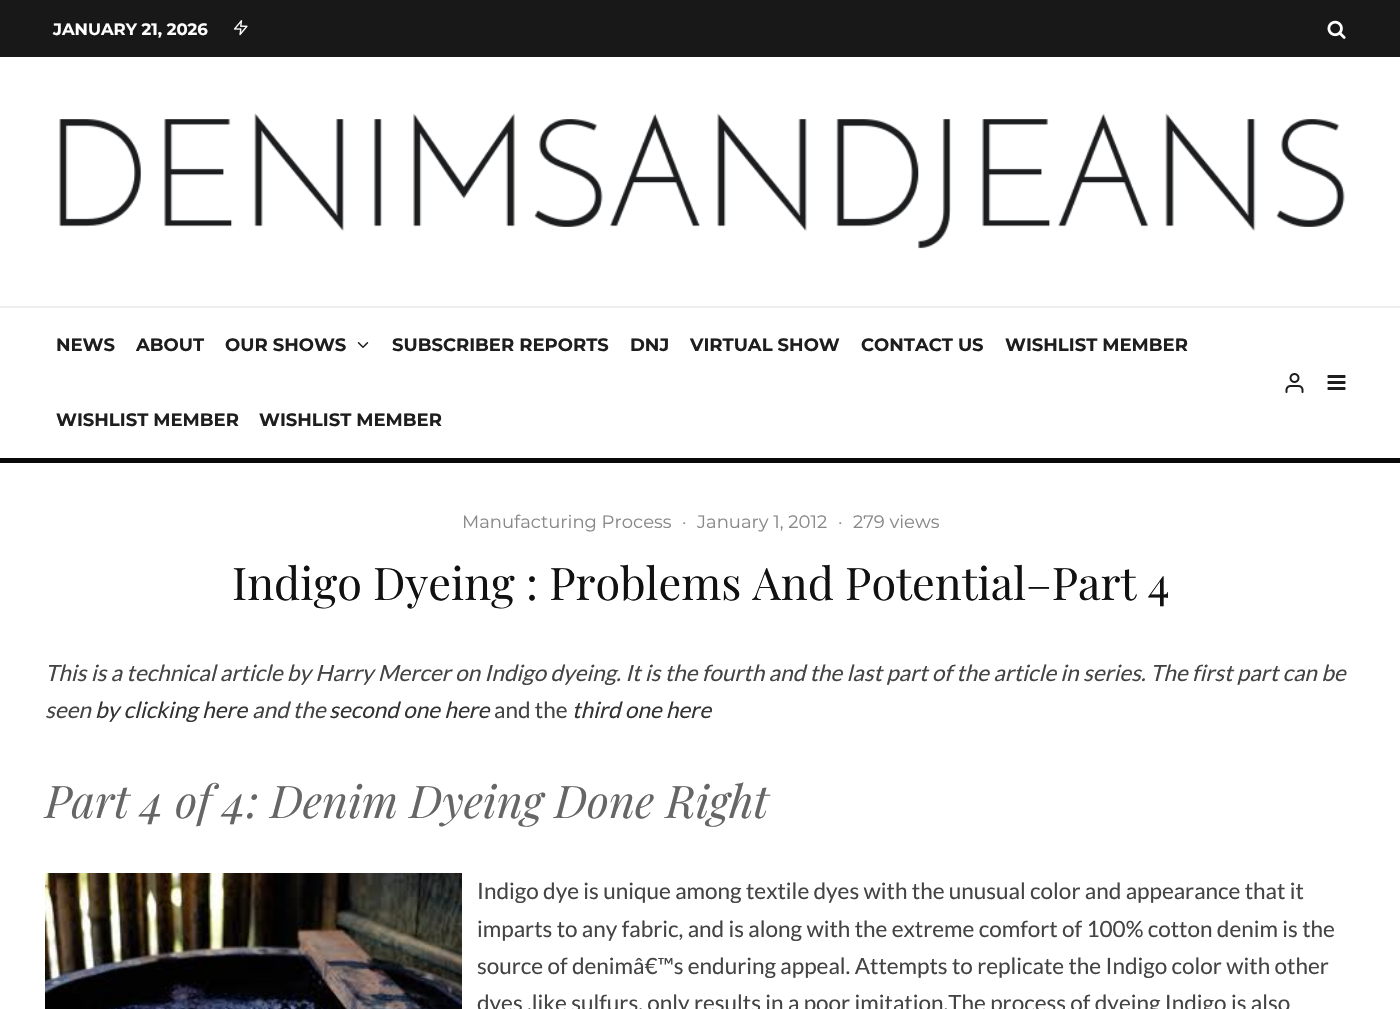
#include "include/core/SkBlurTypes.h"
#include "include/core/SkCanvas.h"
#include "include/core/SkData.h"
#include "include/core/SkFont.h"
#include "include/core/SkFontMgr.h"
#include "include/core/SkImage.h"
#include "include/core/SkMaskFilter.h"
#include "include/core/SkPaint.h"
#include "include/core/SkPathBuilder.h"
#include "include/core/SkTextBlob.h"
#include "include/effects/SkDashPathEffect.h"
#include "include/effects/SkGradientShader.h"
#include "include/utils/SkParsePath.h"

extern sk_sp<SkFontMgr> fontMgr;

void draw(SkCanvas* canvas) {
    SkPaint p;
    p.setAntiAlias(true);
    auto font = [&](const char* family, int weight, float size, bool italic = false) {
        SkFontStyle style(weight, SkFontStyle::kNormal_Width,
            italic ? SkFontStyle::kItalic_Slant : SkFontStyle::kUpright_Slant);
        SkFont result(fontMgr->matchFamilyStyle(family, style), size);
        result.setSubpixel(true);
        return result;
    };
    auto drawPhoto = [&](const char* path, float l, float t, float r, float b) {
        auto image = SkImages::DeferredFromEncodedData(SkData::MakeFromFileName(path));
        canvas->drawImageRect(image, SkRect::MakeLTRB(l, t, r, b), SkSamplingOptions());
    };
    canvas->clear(0xFFFFFFFF);
    p.setColor(0xFF181818);
    canvas->drawRect(SkRect::MakeLTRB(0, 0, 1400, 57), p);
    auto font1 = font("Montserrat", 700, 16.5f);
    p.setColor(0xFFFFFFFF);
    canvas->drawString("JANUARY 21, 2026", 53, 35, font1, p);
    drawPhoto("media/1.png", 233, 20, 248, 36);
    drawPhoto("media/2.png", 1327, 20, 1346, 39);
    drawPhoto("media/3.png", 59, 113, 1345, 249);
    p.setColor(0xFFEEEEEE);
    canvas->drawRect(SkRect::MakeLTRB(0, 306, 1400, 308), p);
    p.setColor(0xFF0A0A0A);
    canvas->drawRect(SkRect::MakeLTRB(0, 458, 1400, 463), p);
    auto font2 = font("Montserrat", 700, 18);
    p.setColor(0xFF1E1E1E);
    {
        const struct { const char* s; float x, y; } items[] = {
            {"NEWS", 56, 351},
            {"ABOUT", 136, 351},
            {"OUR SHOWS", 225, 351},
        };
        for (auto [s, x, y] : items) {
            canvas->drawString(s, x, y, font2, p);
        }
    }
    drawPhoto("media/4.png", 357, 342, 369, 348);
    {
        const struct { const char* s; float x, y; } items[] = {
            {"SUBSCRIBER REPORTS", 392, 351},
            {"DNJ", 630, 351},
            {"VIRTUAL SHOW", 690, 351},
            {"CONTACT US", 861, 351},
            {"WISHLIST MEMBER", 1005, 351},
            {"WISHLIST MEMBER", 56, 426},
            {"WISHLIST MEMBER", 259, 426},
        };
        for (auto [s, x, y] : items) {
            canvas->drawString(s, x, y, font2, p);
        }
    }
    drawPhoto("media/5.png", 1285, 373, 1304, 393);
    drawPhoto("media/6.png", 1327, 375, 1346, 390);
    auto font3 = font("Montserrat", 400, 18);
    p.setColor(0xFF888888);
    {
        const struct { const char* s; float x, y; } items[] = {
            {"Manufacturing Process", 462, 528},
            {"·", 682, 528},
            {"January 1, 2012", 697, 528},
            {"·", 838, 528},
            {"279 views", 853, 528},
        };
        for (auto [s, x, y] : items) {
            canvas->drawString(s, x, y, font3, p);
        }
    }
    auto font4 = font("Playfair Display", 400, 45);
    p.setColor(0xFF111111);
    canvas->drawString("Indigo Dyeing : Problems And Potential–Part 4", 232, 600, font4, p);
    auto font5 = font("Lato", 400, 22.5f, true);
    p.setColor(0xFF444444);
    canvas->drawString("This is a technical article by Harry Mercer on Indigo dyeing. It is the fourth and the last part of the article in series. The first part can be", 45, 681, font5, p);
    canvas->drawString("seen", 45, 718, font5, p);
    p.setColor(0xFF333333);
    canvas->drawString("by clicking here", 95, 718, font5, p);
    p.setColor(0xFF444444);
    canvas->drawString("and the", 252, 718, font5, p);
    p.setColor(0xFF333333);
    canvas->drawString("second one here", 329, 718, font5, p);
    auto font6 = font("Lato", 400, 22.5f);
    p.setColor(0xFF444444);
    canvas->drawString("and the", 494, 718, font6, p);
    p.setColor(0xFF333333);
    canvas->drawString("third one here", 572, 718, font5, p);
    auto font7 = font("Playfair Display", 400, 45, true);
    p.setColor(0xFF666666);
    canvas->drawString("Part 4 of 4: Denim Dyeing Done Right", 45, 818, font7, p);
    drawPhoto("media/7.png", 45, 873, 462, 1009);
    p.setColor(0xFF444444);
    {
        const struct { const char* s; float x, y; } items[] = {
            {"Indigo dye is unique among textile dyes with the unusual color and appearance that it", 477, 899},
            {"imparts to any fabric, and is along with the extreme comfort of 100% cotton denim is the", 477, 937},
            {"source of denimâ€™s enduring appeal. Attempts to replicate the Indigo color with other", 477, 974},
            {"dyes ,like sulfurs, only results in a poor imitation.The process of dyeing Indigo is also", 477, 1011},
        };
        for (auto [s, x, y] : items) {
            canvas->drawString(s, x, y, font6, p);
        }
    }
}
